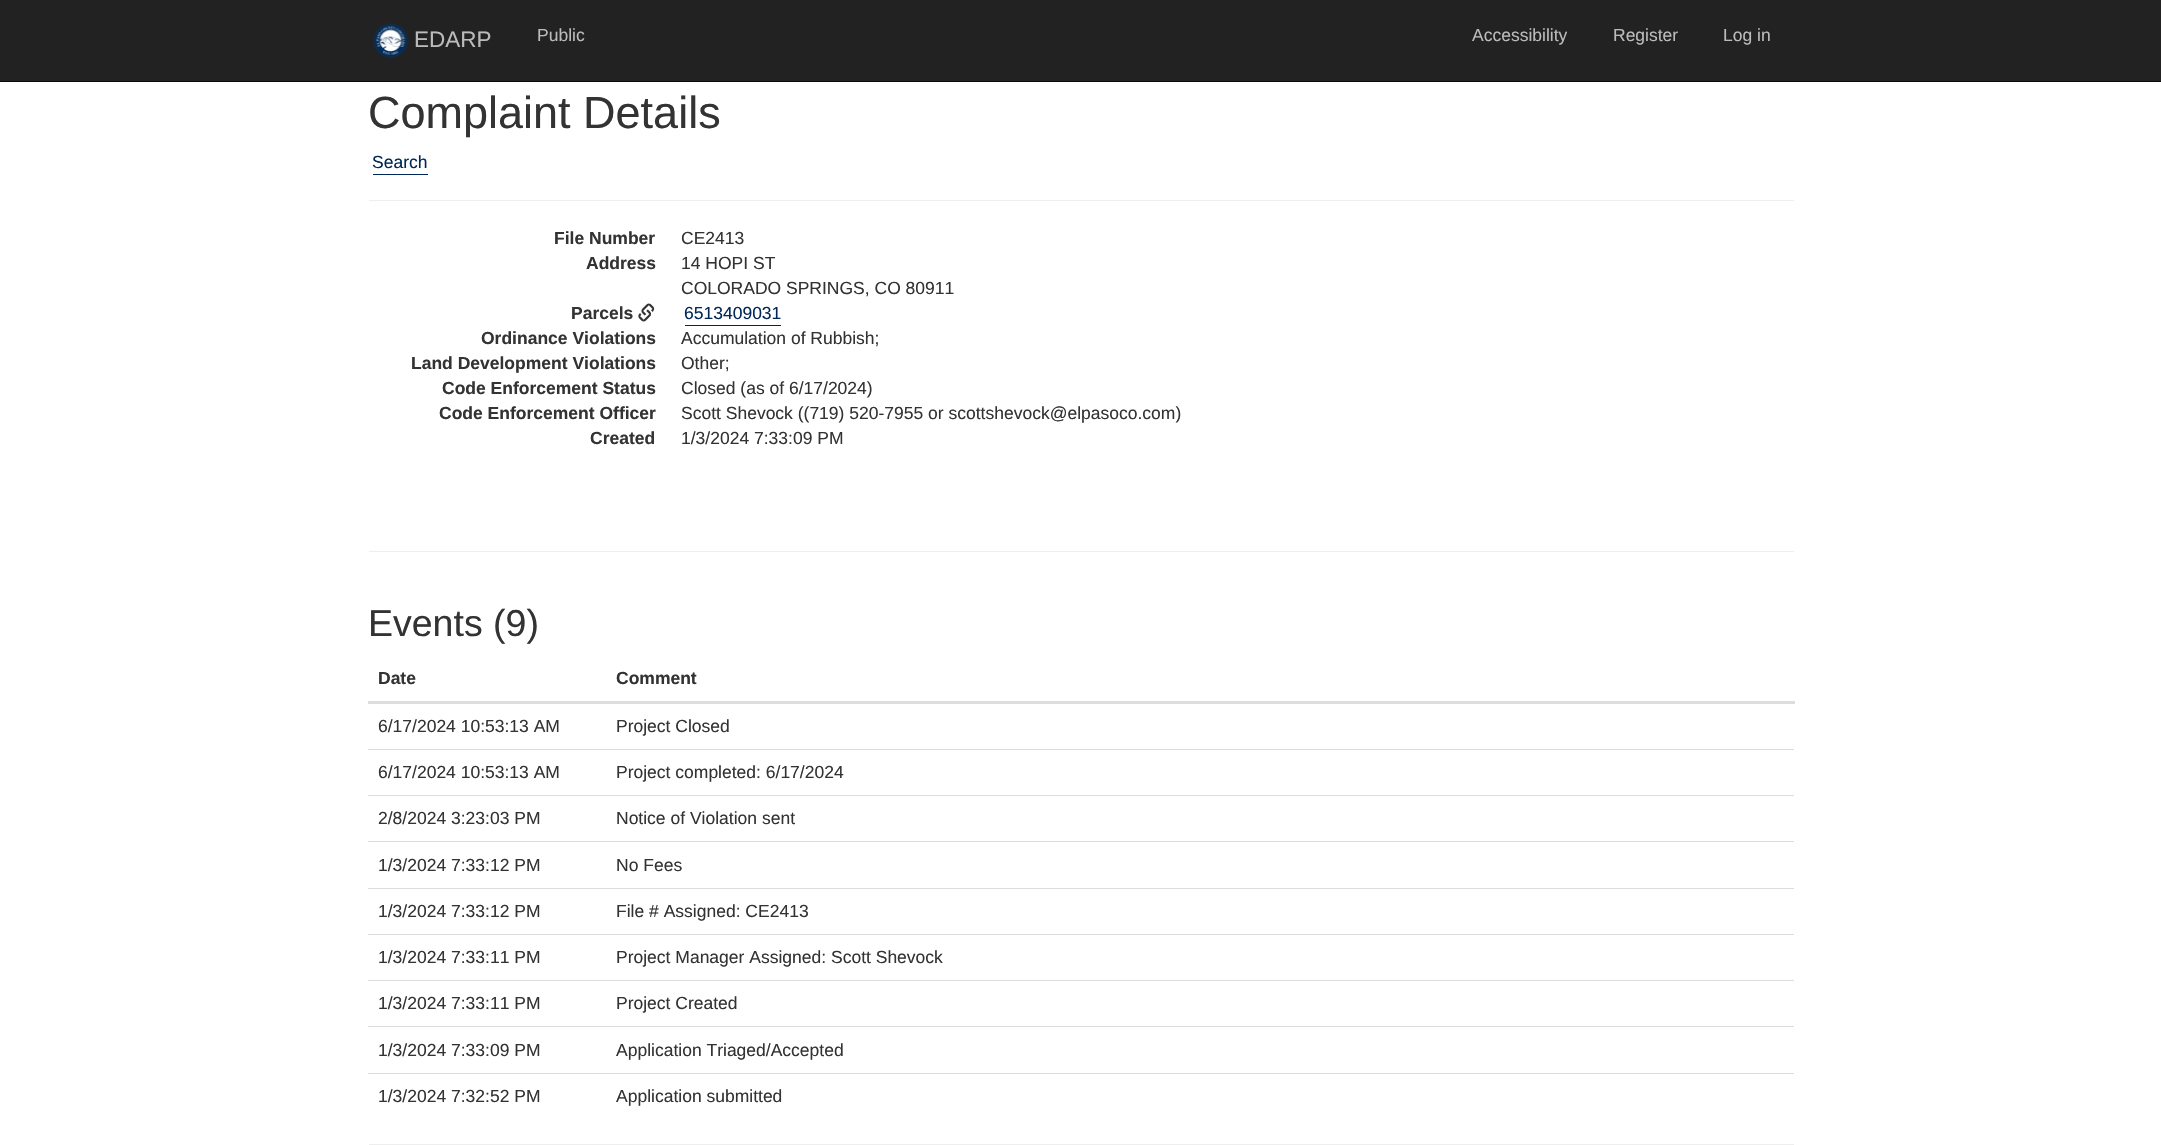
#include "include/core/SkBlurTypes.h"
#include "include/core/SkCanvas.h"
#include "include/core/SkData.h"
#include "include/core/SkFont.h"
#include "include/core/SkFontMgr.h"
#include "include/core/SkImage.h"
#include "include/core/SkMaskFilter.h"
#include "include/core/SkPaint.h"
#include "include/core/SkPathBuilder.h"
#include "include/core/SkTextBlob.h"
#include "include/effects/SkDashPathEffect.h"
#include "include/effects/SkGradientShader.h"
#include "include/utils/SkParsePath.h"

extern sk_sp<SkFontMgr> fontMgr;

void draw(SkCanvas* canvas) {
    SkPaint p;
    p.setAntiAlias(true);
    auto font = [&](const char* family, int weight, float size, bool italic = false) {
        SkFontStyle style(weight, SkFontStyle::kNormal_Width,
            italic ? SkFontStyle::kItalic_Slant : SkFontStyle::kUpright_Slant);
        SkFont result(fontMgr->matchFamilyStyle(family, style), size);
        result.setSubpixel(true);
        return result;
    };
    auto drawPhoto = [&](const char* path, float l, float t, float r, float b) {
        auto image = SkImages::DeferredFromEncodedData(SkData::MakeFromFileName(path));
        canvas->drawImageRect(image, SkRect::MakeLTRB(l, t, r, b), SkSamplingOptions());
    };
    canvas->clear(0xFFFFFFFF);
    p.setColor(0xFF222222);
    canvas->drawRect(SkRect::MakeLTRB(0, 0, 2161, 81), p);
    p.setColor(0xFF080808);
    canvas->drawRect(SkRect::MakeLTRB(0, 81, 2161, 82), p);
    drawPhoto("media/1.png", 373, 23, 409, 58);
    auto font1 = font("Liberation Sans", 400, 22.5f);
    p.setColor(0xFFBBBBBB);
    canvas->drawString("EDARP", 414, 47, font1, p);
    auto font2 = font("Liberation Sans", 400, 17.5f);
    {
        const struct { const char* s; float x, y; } items[] = {
            {"Public", 537, 41},
            {"Accessibility", 1472, 41},
            {"Register", 1613, 41},
            {"Log in", 1723, 41},
        };
        for (auto [s, x, y] : items) {
            canvas->drawString(s, x, y, font2, p);
        }
    }
    auto font3 = font("Liberation Sans", 400, 45);
    p.setColor(0xFF333333);
    canvas->drawString("Complaint Details", 368, 128, font3, p);
    p.setColor(0xFF002755);
    canvas->drawString("Search", 372, 168, font2, p);
    canvas->drawRect(SkRect::MakeLTRB(373, 174, 428, 175), p);
    p.setColor(0xFFEEEEEE);
    canvas->drawRect(SkRect::MakeLTRB(369, 200, 1794, 201), p);
    auto font4 = font("Liberation Sans", 700, 17.5f);
    p.setColor(0xFF333333);
    canvas->drawString("File Number", 554, 244, font4, p);
    canvas->drawString("CE2413", 681, 244, font2, p);
    canvas->drawString("Address", 586, 269, font4, p);
    canvas->drawString("14 HOPI ST", 681, 269, font2, p);
    canvas->drawString("COLORADO SPRINGS, CO 80911", 681, 294, font2, p);
    canvas->drawString("Parcels", 571, 319, font4, p);
    drawPhoto("media/2.png", 638, 303, 655, 322);
    p.setColor(0xFF002755);
    canvas->drawString("6513409031", 684, 319, font2, p);
    canvas->drawRect(SkRect::MakeLTRB(685, 325, 781, 326), p);
    p.setColor(0xFF333333);
    canvas->drawString("Ordinance Violations", 481, 344, font4, p);
    canvas->drawString("Accumulation of Rubbish;", 681, 344, font2, p);
    canvas->drawString("Land Development Violations", 411, 369, font4, p);
    canvas->drawString("Other;", 681, 369, font2, p);
    canvas->drawString("Code Enforcement Status", 442, 394, font4, p);
    canvas->drawString("Closed (as of 6/17/2024)", 681, 394, font2, p);
    canvas->drawString("Code Enforcement Officer", 439, 419, font4, p);
    canvas->drawString("Scott Shevock ((719) 520-7955 or scottshevock@elpasoco.com)", 681, 419, font2, p);
    canvas->drawString("Created", 590, 444, font4, p);
    canvas->drawString("1/3/2024 7:33:09 PM", 681, 444, font2, p);
    p.setColor(0xFFEEEEEE);
    canvas->drawRect(SkRect::MakeLTRB(369, 551, 1794, 552), p);
    auto font5 = font("Liberation Sans", 400, 37.5f);
    p.setColor(0xFF333333);
    canvas->drawString("Events (9)", 368, 636, font5, p);
    canvas->drawString("Date", 378, 684, font4, p);
    p.setColor(0xFFDDDDDD);
    canvas->drawRect(SkRect::MakeLTRB(368, 701, 1795, 704), p);
    p.setColor(0xFF333333);
    canvas->drawString("Comment", 616, 684, font4, p);
    {
        const struct { const char* s; float x, y; } items[] = {
            {"6/17/2024 10:53:13 AM", 378, 732},
            {"Project Closed", 616, 732},
            {"6/17/2024 10:53:13 AM", 378, 778},
        };
        for (auto [s, x, y] : items) {
            canvas->drawString(s, x, y, font2, p);
        }
    }
    p.setColor(0xFFDDDDDD);
    canvas->drawRect(SkRect::MakeLTRB(368, 749, 1794, 750), p);
    p.setColor(0xFF333333);
    canvas->drawString("Project completed: 6/17/2024", 616, 778, font2, p);
    canvas->drawString("2/8/2024 3:23:03 PM", 378, 824, font2, p);
    p.setColor(0xFFDDDDDD);
    canvas->drawRect(SkRect::MakeLTRB(368, 795, 1794, 796), p);
    p.setColor(0xFF333333);
    canvas->drawString("Notice of Violation sent", 616, 824, font2, p);
    canvas->drawString("1/3/2024 7:33:12 PM", 378, 871, font2, p);
    p.setColor(0xFFDDDDDD);
    canvas->drawRect(SkRect::MakeLTRB(368, 841, 1794, 842), p);
    p.setColor(0xFF333333);
    canvas->drawString("No Fees", 616, 871, font2, p);
    canvas->drawString("1/3/2024 7:33:12 PM", 378, 917, font2, p);
    p.setColor(0xFFDDDDDD);
    canvas->drawRect(SkRect::MakeLTRB(368, 888, 1794, 889), p);
    p.setColor(0xFF333333);
    canvas->drawString("File # Assigned: CE2413", 616, 917, font2, p);
    canvas->drawString("1/3/2024 7:33:11 PM", 378, 963, font2, p);
    p.setColor(0xFFDDDDDD);
    canvas->drawRect(SkRect::MakeLTRB(368, 934, 1794, 935), p);
    p.setColor(0xFF333333);
    canvas->drawString("Project Manager Assigned: Scott Shevock", 616, 963, font2, p);
    canvas->drawString("1/3/2024 7:33:11 PM", 378, 1009, font2, p);
    p.setColor(0xFFDDDDDD);
    canvas->drawRect(SkRect::MakeLTRB(368, 980, 1794, 981), p);
    p.setColor(0xFF333333);
    canvas->drawString("Project Created", 616, 1009, font2, p);
    canvas->drawString("1/3/2024 7:33:09 PM", 378, 1056, font2, p);
    p.setColor(0xFFDDDDDD);
    canvas->drawRect(SkRect::MakeLTRB(368, 1026, 1794, 1027), p);
    p.setColor(0xFF333333);
    canvas->drawString("Application Triaged/Accepted", 616, 1056, font2, p);
    canvas->drawString("1/3/2024 7:32:52 PM", 378, 1102, font2, p);
    p.setColor(0xFFDDDDDD);
    canvas->drawRect(SkRect::MakeLTRB(368, 1073, 1794, 1074), p);
    p.setColor(0xFF333333);
    canvas->drawString("Application submitted", 616, 1102, font2, p);
    p.setColor(0xFFEEEEEE);
    canvas->drawRect(SkRect::MakeLTRB(369, 1144, 1794, 1145), p);
}
